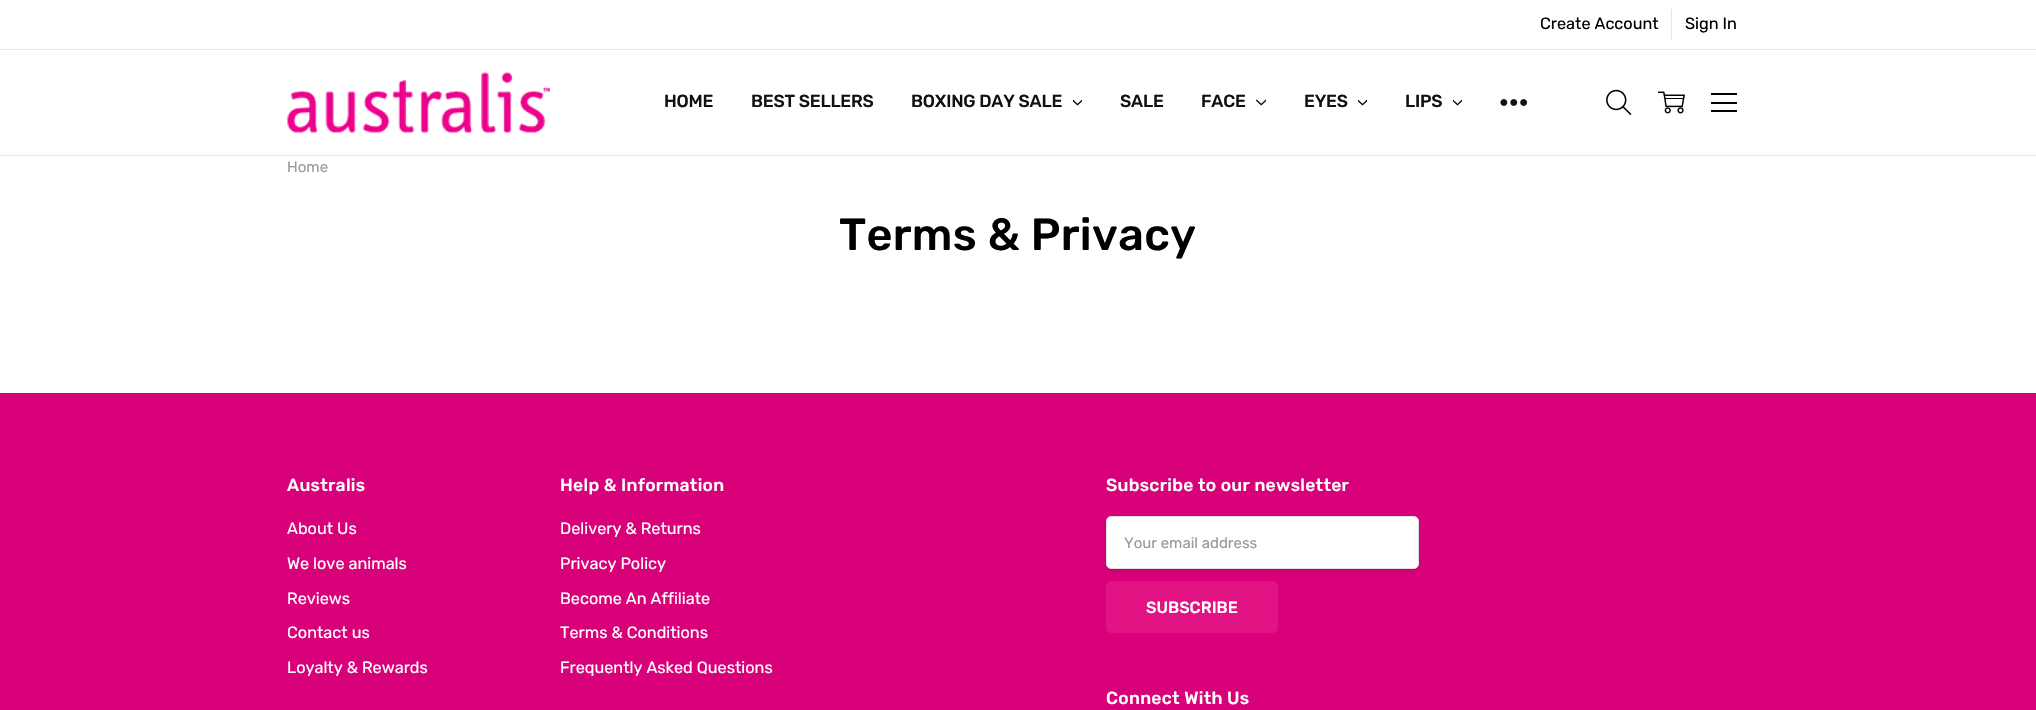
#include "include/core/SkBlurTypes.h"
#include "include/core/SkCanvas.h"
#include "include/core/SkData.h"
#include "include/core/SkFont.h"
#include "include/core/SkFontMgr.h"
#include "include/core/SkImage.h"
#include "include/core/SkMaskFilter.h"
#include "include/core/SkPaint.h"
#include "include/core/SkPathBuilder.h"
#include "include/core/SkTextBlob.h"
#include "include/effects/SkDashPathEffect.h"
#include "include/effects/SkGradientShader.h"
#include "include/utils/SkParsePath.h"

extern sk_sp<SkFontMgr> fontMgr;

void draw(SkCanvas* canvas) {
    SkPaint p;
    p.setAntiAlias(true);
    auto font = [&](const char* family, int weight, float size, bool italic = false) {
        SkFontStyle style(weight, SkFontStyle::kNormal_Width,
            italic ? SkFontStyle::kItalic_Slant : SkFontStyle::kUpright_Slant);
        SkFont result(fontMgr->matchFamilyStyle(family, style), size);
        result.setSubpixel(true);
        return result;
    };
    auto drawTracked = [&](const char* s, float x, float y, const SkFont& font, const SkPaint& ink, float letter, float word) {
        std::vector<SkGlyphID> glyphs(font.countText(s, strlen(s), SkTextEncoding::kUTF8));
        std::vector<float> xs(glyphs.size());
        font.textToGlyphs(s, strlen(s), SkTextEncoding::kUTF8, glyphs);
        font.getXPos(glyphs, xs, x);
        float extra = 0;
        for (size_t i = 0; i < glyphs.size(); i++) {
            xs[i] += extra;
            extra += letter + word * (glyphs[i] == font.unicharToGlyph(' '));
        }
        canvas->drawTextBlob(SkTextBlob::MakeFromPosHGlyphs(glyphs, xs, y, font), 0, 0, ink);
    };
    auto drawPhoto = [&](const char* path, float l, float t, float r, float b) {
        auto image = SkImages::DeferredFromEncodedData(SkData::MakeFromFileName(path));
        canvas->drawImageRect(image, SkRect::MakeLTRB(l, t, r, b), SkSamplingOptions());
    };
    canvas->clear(0xFFFFFFFF);
    p.setColor(0xFFE5E5E5);
    canvas->drawRect(SkRect::MakeLTRB(0, 155, 2036, 156), p);
    p.setColor(0xFFE6E6E6);
    canvas->drawRect(SkRect::MakeLTRB(0, 49, 2036, 50), p);
    auto font1 = font("Rubik", 300, 16.25f);
    p.setColor(0xFF000000);
    canvas->drawString("Create Account", 1540, 29, font1, p);
    p.setColor(0xFFE6E6E6);
    canvas->drawRect(SkRect::MakeLTRB(1671, 9, 1672, 40), p);
    p.setColor(0xFF000000);
    canvas->drawString("Sign In", 1685, 29, font1, p);
    drawPhoto("media/1.png", 287, 72, 550, 133);
    auto font2 = font("Rubik", 500, 17.5f);
    p.setColor(0xFF111111);
    {
        const struct { const char* s; float x, y; } items[] = {
            {"HOME", 664, 107},
            {"BEST SELLERS", 751, 107},
            {"BOXING DAY SALE", 911, 107},
        };
        for (auto [s, x, y] : items) {
            drawTracked(s, x, y, font2, p, -0.2f, 0);
        }
    }
    drawPhoto("media/2.png", 1073, 99, 1082, 106);
    drawTracked("SALE", 1120, 107, font2, p, -0.2f, 0);
    drawTracked("FACE", 1201, 107, font2, p, -0.2f, 0);
    drawPhoto("media/3.png", 1256, 99, 1266, 106);
    drawTracked("EYES", 1304, 107, font2, p, -0.2f, 0);
    drawPhoto("media/2.png", 1358, 99, 1367, 106);
    drawTracked("LIPS", 1405, 107, font2, p, -0.2f, 0);
    drawPhoto("media/2.png", 1453, 99, 1462, 106);
    drawPhoto("media/4.png", 1500, 99, 1528, 106);
    drawPhoto("media/5.png", 1606, 89, 1632, 116);
    drawPhoto("media/6.png", 1658, 91, 1685, 114);
    {
        const struct { float l, t, r, b; SkColor color; } items[] = {
            {1711, 93, 1737, 95, 0xFF000000},
            {1711, 102, 1737, 104, 0xFF000000},
            {1711, 110, 1737, 112, 0xFF000000},
        };
        for (auto [l, t, r, b, color] : items) {
            p.setColor(color);
            canvas->drawRect(SkRect::MakeLTRB(l, t, r, b), p);
        }
    }
    auto font3 = font("Rubik", 300, 15);
    p.setColor(0xFF999999);
    canvas->drawString("Home", 287, 172, font3, p);
    auto font4 = font("Rubik", 500, 45);
    p.setColor(0xFF000000);
    drawTracked("Terms & Privacy", 839, 250, font4, p, 0.3f, 0);
    p.setColor(0xFFD9017A);
    canvas->drawRect(SkRect::MakeLTRB(0, 393, 2036, 710), p);
    p.setColor(0xFFFFFFFF);
    drawTracked("Australis", 287, 491, font2, p, 0.3f, 0);
    {
        const struct { const char* s; float x, y; } items[] = {
            {"About Us", 287, 534},
            {"We love animals", 287, 569},
            {"Reviews", 287, 604},
            {"Contact us", 287, 638},
            {"Loyalty & Rewards", 287, 673},
        };
        for (auto [s, x, y] : items) {
            canvas->drawString(s, x, y, font1, p);
        }
    }
    drawTracked("Help & Information", 560, 491, font2, p, 0.3f, 0);
    {
        const struct { const char* s; float x, y; } items[] = {
            {"Delivery & Returns", 560, 534},
            {"Privacy Policy", 560, 569},
            {"Become An Affiliate", 560, 604},
            {"Terms & Conditions", 560, 638},
            {"Frequently Asked Questions", 560, 673},
        };
        for (auto [s, x, y] : items) {
            canvas->drawString(s, x, y, font1, p);
        }
    }
    drawTracked("Subscribe to our newsletter", 1106, 491, font2, p, 0.3f, 0);
    p.setColor(0x1A000000);
    p.setMaskFilter(SkMaskFilter::MakeBlur(kNormal_SkBlurStyle, 2.5f));
    canvas->drawRoundRect(SkRect::MakeLTRB(1106, 519, 1419, 571), 5, 5, p);
    p.setMaskFilter(nullptr);
    p.setColor(0xFFFFFFFF);
    canvas->drawRoundRect(SkRect::MakeLTRB(1106.5f, 516.5f, 1418.5f, 568.5f), 4.5f, 4.5f, p);
    p.setStyle(SkPaint::kStroke_Style);
    p.setStrokeWidth(1);
    p.setColor(0xFFDFDFDF);
    canvas->drawRoundRect(SkRect::MakeLTRB(1106.5f, 516.5f, 1418.5f, 568.5f), 4.5f, 4.5f, p);
    p.setStyle(SkPaint::kFill_Style);
    p.setColor(0xFF999999);
    canvas->drawString("Your email address", 1124, 548, font3, p);
    p.setColor(0xFFE11383);
    canvas->drawRoundRect(SkRect::MakeLTRB(1106.5f, 581.5f, 1277.5f, 632.5f), 4.5f, 4.5f, p);
    p.setStyle(SkPaint::kStroke_Style);
    canvas->drawRoundRect(SkRect::MakeLTRB(1106.5f, 581.5f, 1277.5f, 632.5f), 4.5f, 4.5f, p);
    auto font5 = font("Rubik", 500, 16.25f);
    p.setStyle(SkPaint::kFill_Style);
    p.setColor(0xFFFFFFFF);
    canvas->drawString("SUBSCRIBE", 1146, 613, font5, p);
    drawTracked("Connect With Us", 1106, 704, font2, p, 0.3f, 0);
}
